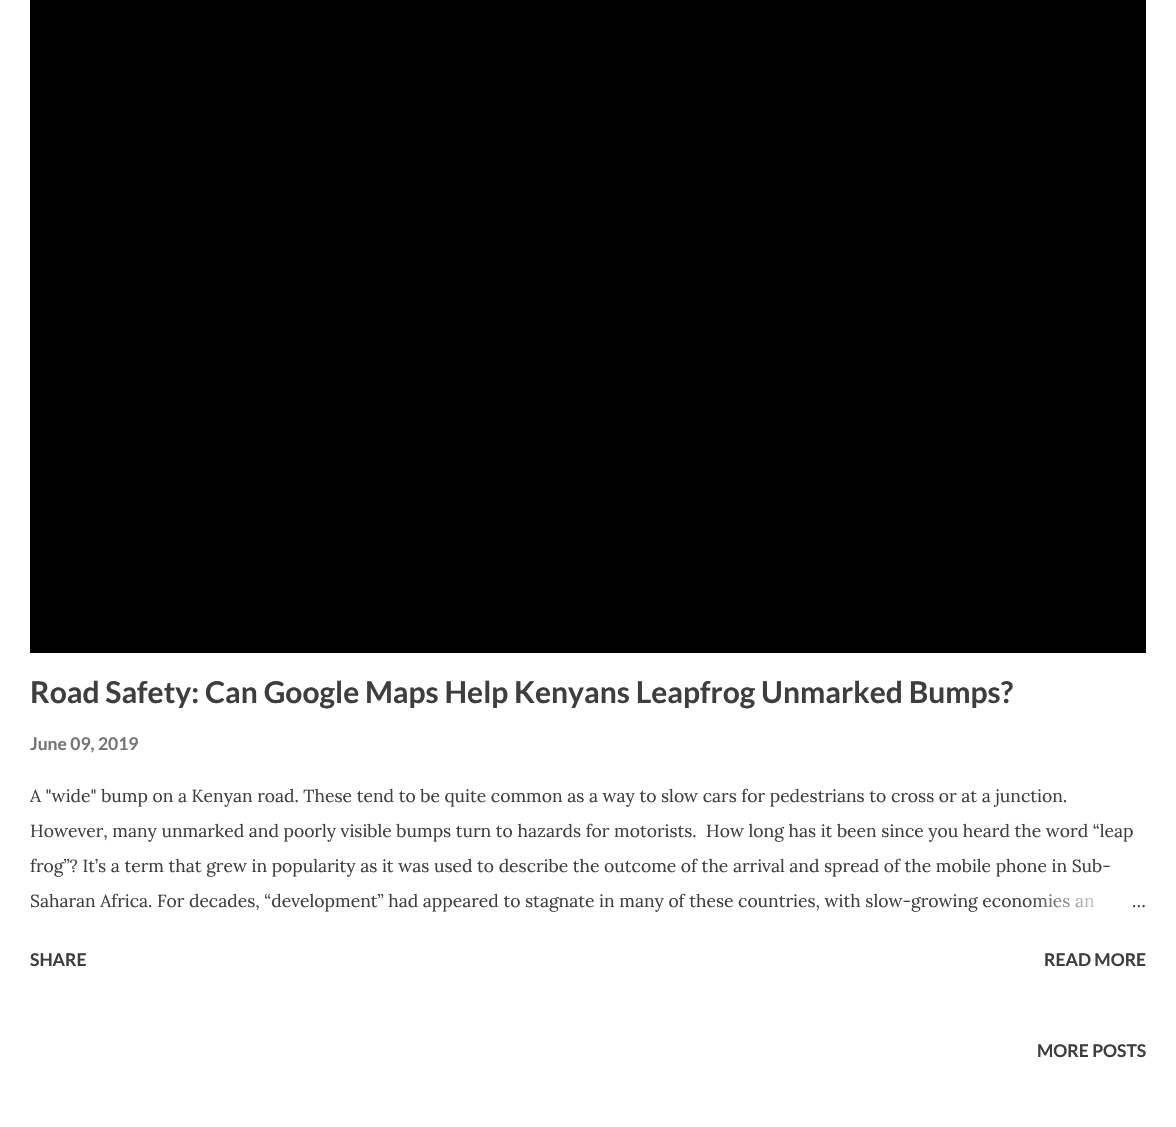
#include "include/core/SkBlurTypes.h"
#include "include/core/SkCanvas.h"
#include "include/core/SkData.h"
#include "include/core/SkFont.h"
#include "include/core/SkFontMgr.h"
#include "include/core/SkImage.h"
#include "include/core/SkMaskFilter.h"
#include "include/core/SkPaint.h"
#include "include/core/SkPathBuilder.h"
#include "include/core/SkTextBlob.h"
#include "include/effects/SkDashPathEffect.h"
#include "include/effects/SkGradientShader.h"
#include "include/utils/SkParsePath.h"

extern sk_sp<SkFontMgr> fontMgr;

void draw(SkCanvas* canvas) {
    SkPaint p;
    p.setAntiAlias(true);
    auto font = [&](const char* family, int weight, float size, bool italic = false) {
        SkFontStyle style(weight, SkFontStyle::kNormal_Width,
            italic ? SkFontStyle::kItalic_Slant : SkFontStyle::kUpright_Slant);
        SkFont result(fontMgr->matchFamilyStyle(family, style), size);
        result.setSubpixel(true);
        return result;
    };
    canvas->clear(0xFFFFFFFF);
    p.setColor(0xFF000000);
    canvas->drawRect(SkRect::MakeLTRB(30, 0, 1146, 653), p);
    auto font1 = font("Lato", 700, 30);
    p.setColor(0xFF3E3F3C);
    canvas->drawString("Road Safety: Can Google Maps Help Kenyans Leapfrog Unmarked Bumps?", 30, 703, font1, p);
    auto font2 = font("Lato", 700, 17.5f);
    p.setColor(0xFF757575);
    canvas->drawString("June 09, 2019", 30, 750, font2, p);
    auto font3 = font("Lora", 400, 17.5f);
    p.setColor(0xFF3E3F3C);
    {
        const struct { const char* s; float x, y; } items[] = {
            {"A \"wide\" bump on a Kenyan road. These tend to be quite common as a way to slow cars for pedestrians to cross or at a junction.", 30, 802},
            {"However, many unmarked and poorly visible bumps turn to hazards for motorists.", 30, 837},
            {"How long has it been since you heard the word “leap", 706, 837},
            {"frog”? It’s a term that grew in popularity as it was used to describe the outcome of the arrival and spread of the mobile phone in Sub-", 30, 872},
            {"Saharan Africa. For decades, “development” had appeared to stagnate in many of these countries, with slow-growing economies an", 30, 907},
        };
        for (auto [s, x, y] : items) {
            canvas->drawString(s, x, y, font3, p);
        }
    }
    {
        const SkColor colors[] = {0xFFFFFFFF, 0xFFFFFFFF, 0x00FFFFFF};
        const float stops[] = {0, 0.2f, 1};
        const SkPoint ends[] = {{1146, 901}, {1026, 901}};
        p.setShader(SkGradientShader::MakeLinear(ends, colors, stops, 3, SkTileMode::kClamp));
        p.setAlpha(255);
    }
    canvas->drawRect(SkRect::MakeLTRB(1028, 894, 1095, 908), p);
    p.setShader(nullptr);
    p.setColor(0xFF3E3F3C);
    canvas->drawString("…", 1132, 907, font3, p);
    {
        const struct { const char* s; float x, y; } items[] = {
            {"SHARE", 30, 966},
            {"READ MORE", 1044, 966},
            {"MORE POSTS", 1037, 1057},
        };
        for (auto [s, x, y] : items) {
            canvas->drawString(s, x, y, font2, p);
        }
    }
}
